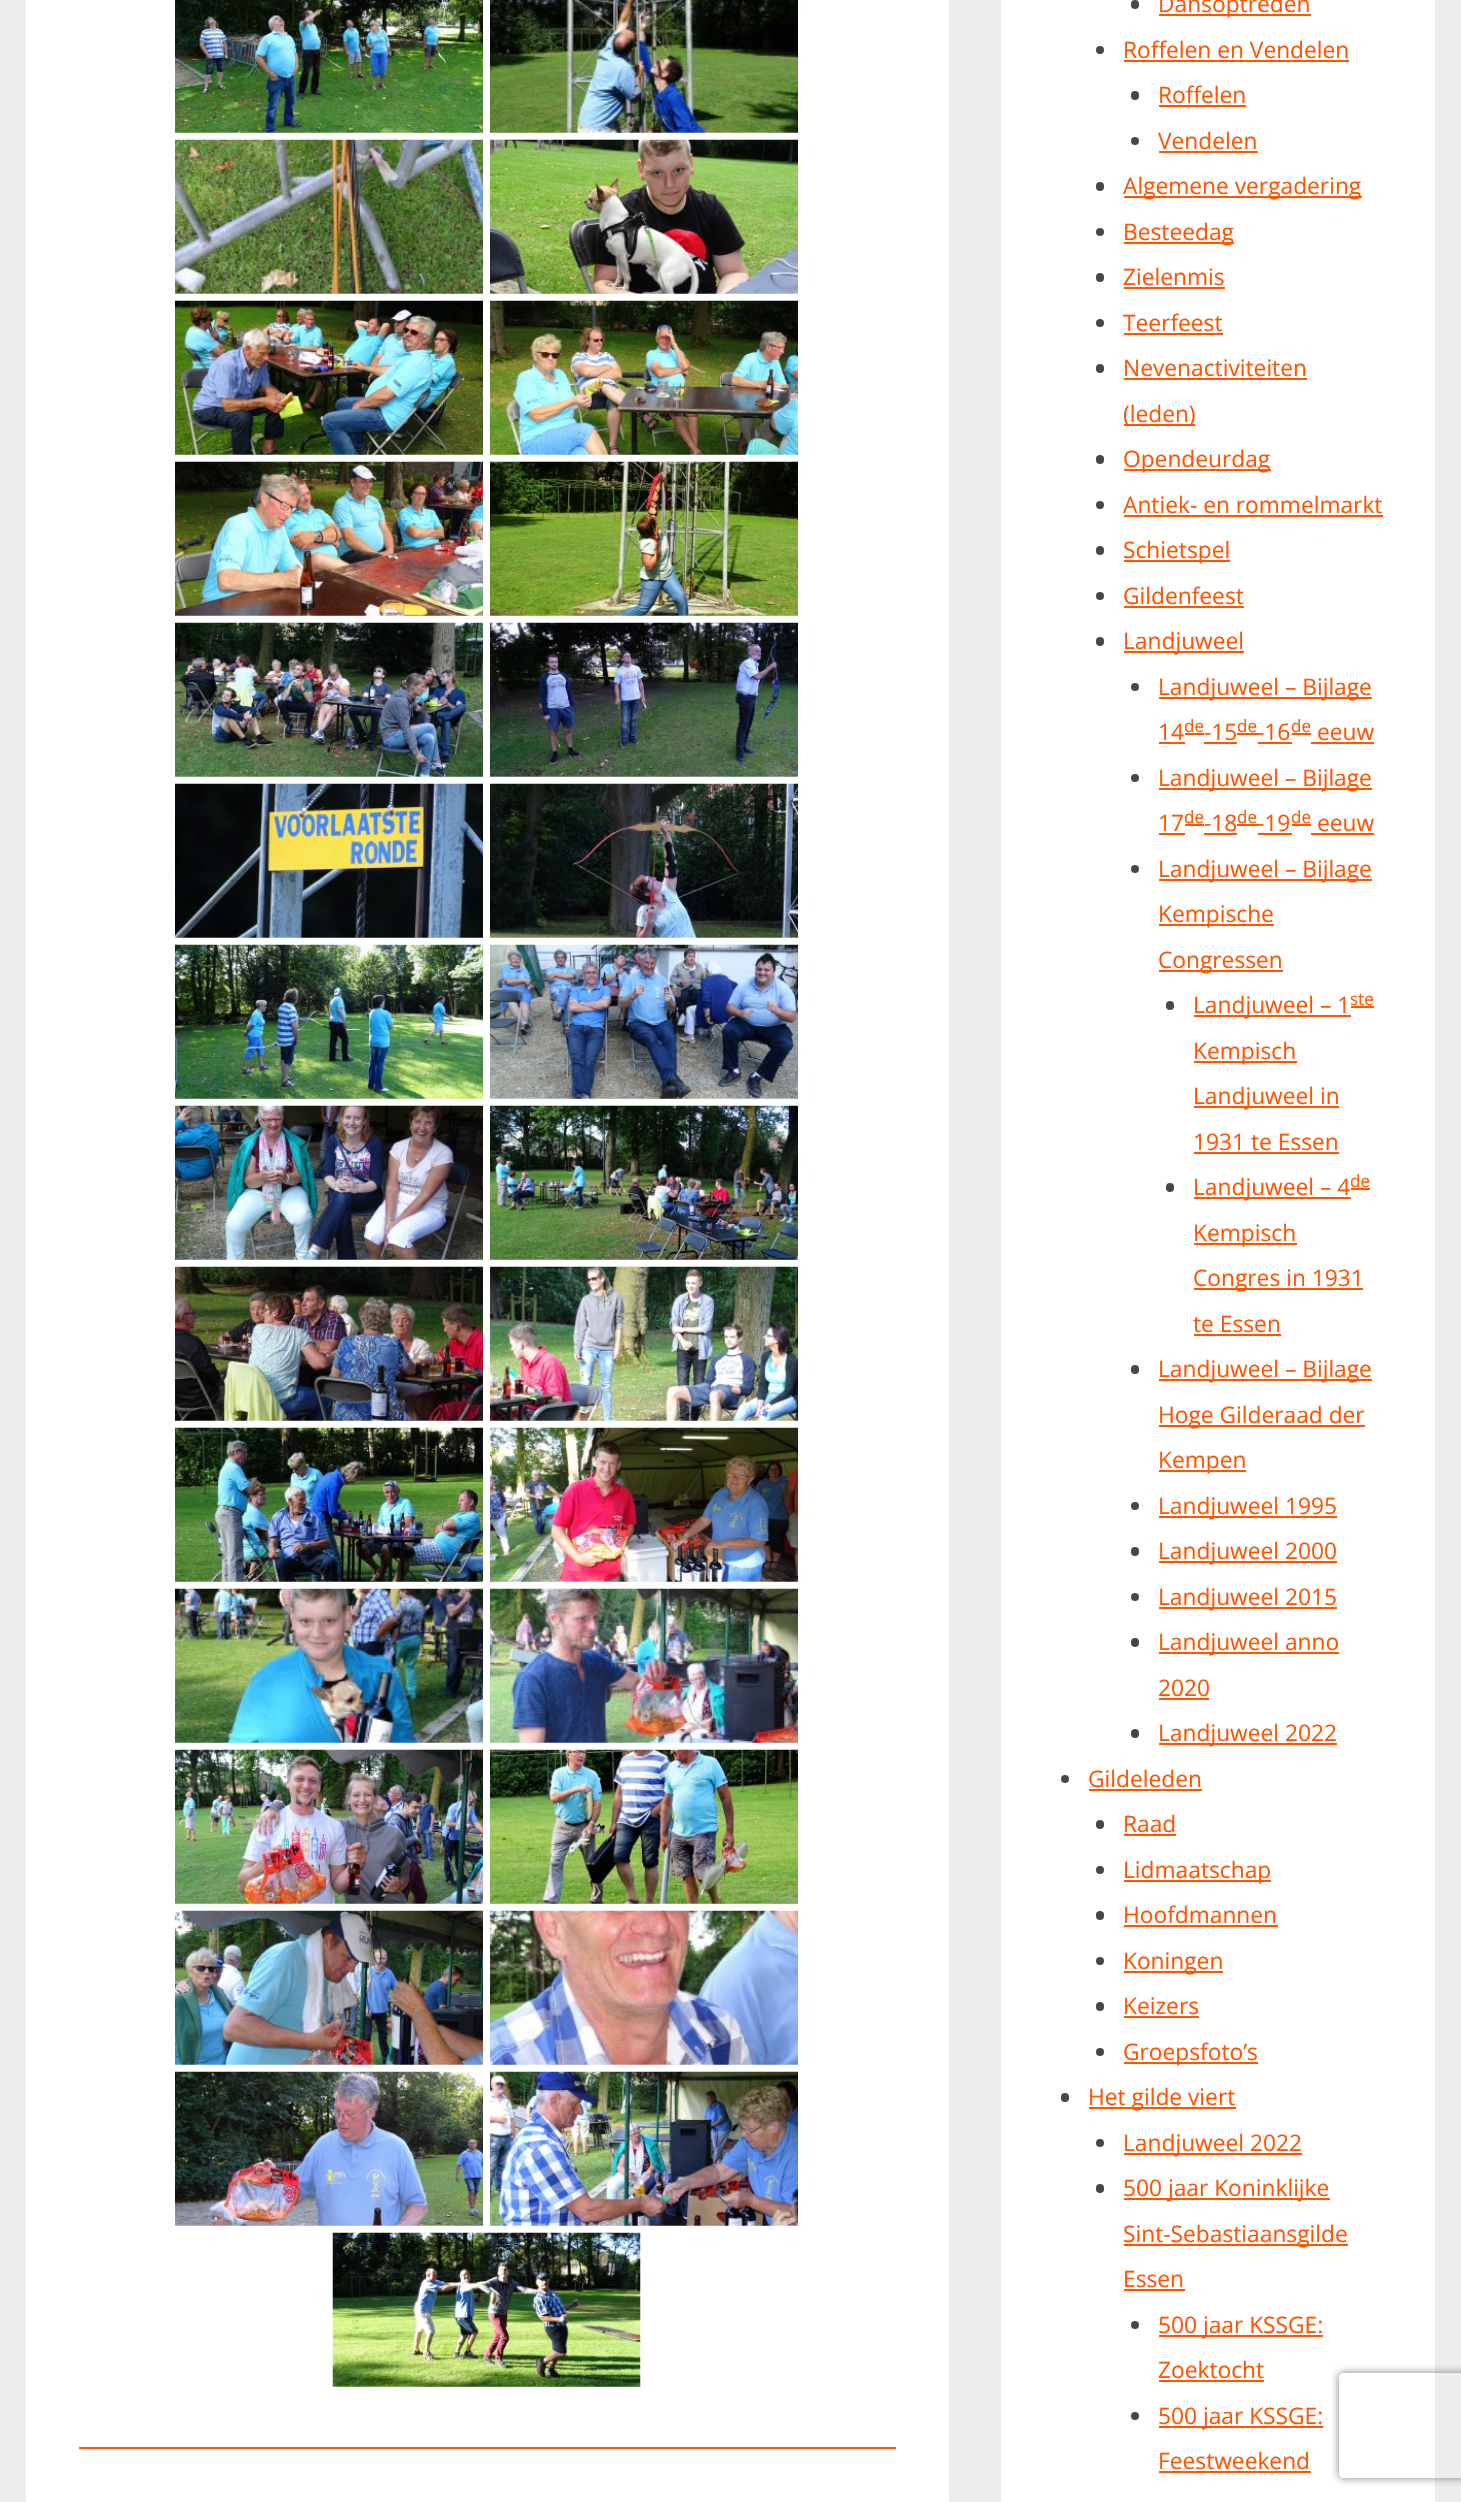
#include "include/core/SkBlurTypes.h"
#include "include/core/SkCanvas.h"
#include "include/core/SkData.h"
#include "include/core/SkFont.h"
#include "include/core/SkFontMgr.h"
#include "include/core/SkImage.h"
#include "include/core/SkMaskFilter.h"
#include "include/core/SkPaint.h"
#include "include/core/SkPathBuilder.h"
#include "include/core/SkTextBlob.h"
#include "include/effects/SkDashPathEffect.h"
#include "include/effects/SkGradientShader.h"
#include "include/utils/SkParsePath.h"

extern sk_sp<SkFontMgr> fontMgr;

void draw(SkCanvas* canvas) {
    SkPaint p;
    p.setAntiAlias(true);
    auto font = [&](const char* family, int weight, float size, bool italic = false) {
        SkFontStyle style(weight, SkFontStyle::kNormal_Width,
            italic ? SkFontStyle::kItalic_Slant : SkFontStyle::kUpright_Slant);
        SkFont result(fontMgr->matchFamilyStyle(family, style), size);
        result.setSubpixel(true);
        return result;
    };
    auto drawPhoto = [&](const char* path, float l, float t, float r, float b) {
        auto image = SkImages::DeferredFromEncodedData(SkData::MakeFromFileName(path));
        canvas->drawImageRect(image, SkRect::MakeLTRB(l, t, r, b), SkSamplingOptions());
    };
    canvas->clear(0xFFEDEDED);
    p.setColor(0xFFFFFFFF);
    canvas->drawRect(SkRect::MakeLTRB(26, 0, 949, 2502), p);
    drawPhoto("media/1.png", 175, 0, 483, 133);
    drawPhoto("media/2.png", 490, 0, 798, 133);
    drawPhoto("media/3.png", 175, 139, 483, 294);
    drawPhoto("media/4.png", 490, 139, 798, 294);
    drawPhoto("media/5.png", 175, 300, 483, 455);
    drawPhoto("media/6.png", 490, 300, 798, 455);
    drawPhoto("media/7.png", 175, 461, 483, 616);
    drawPhoto("media/8.png", 490, 461, 798, 616);
    drawPhoto("media/9.png", 175, 622, 483, 777);
    drawPhoto("media/10.png", 490, 622, 798, 777);
    drawPhoto("media/11.png", 175, 783, 483, 938);
    drawPhoto("media/12.png", 490, 783, 798, 938);
    drawPhoto("media/13.png", 175, 944, 483, 1099);
    drawPhoto("media/14.png", 490, 944, 798, 1099);
    drawPhoto("media/15.png", 175, 1105, 483, 1260);
    drawPhoto("media/16.png", 490, 1105, 798, 1260);
    drawPhoto("media/17.png", 175, 1266, 483, 1421);
    drawPhoto("media/18.png", 490, 1266, 798, 1421);
    drawPhoto("media/19.png", 175, 1427, 483, 1582);
    drawPhoto("media/20.png", 490, 1427, 798, 1582);
    drawPhoto("media/21.png", 175, 1588, 483, 1743);
    drawPhoto("media/22.png", 490, 1588, 798, 1743);
    drawPhoto("media/23.png", 175, 1749, 483, 1904);
    drawPhoto("media/24.png", 490, 1749, 798, 1904);
    drawPhoto("media/25.png", 175, 1910, 483, 2065);
    drawPhoto("media/26.png", 490, 1910, 798, 2065);
    drawPhoto("media/27.png", 175, 2071, 483, 2226);
    drawPhoto("media/28.png", 490, 2071, 798, 2226);
    drawPhoto("media/29.png", 332, 2232, 641, 2387);
    p.setColor(0xFFFF5400);
    canvas->drawRect(SkRect::MakeLTRB(79, 2447, 896, 2449), p);
    p.setColor(0xFFFFFFFF);
    canvas->drawRect(SkRect::MakeLTRB(1001, 0, 1435, 2502), p);
    p.setColor(0xFF474747);
    canvas->drawRoundRect(SkRect::MakeLTRB(1131, 0, 1139, 9), 4, 4, p);
    p.setColor(0xFFFF5400);
    canvas->drawRect(SkRect::MakeLTRB(1159, 14, 1311, 16), p);
    auto font1 = font("Open Sans", 400, 22.75f);
    canvas->drawString("Dansoptreden", 1158, 12, font1, p);
    p.setColor(0xFF474747);
    canvas->drawCircle(1100, 50, 4, p);
    p.setColor(0xFFFF5400);
    canvas->drawString("Roffelen en Vendelen", 1123, 58, font1, p);
    canvas->drawRect(SkRect::MakeLTRB(1124, 60, 1349, 62), p);
    p.setColor(0xFF474747);
    canvas->drawRoundRect(SkRect::MakeLTRB(1131, 91, 1139, 100), 4, 4, p);
    p.setColor(0xFFFF5400);
    canvas->drawString("Roffelen", 1158, 103, font1, p);
    canvas->drawRect(SkRect::MakeLTRB(1159, 105, 1246, 107), p);
    p.setColor(0xFF474747);
    canvas->drawCircle(1135, 141, 4, p);
    p.setColor(0xFFFF5400);
    canvas->drawString("Vendelen", 1158, 149, font1, p);
    canvas->drawRect(SkRect::MakeLTRB(1159, 151, 1258, 153), p);
    p.setColor(0xFF474747);
    canvas->drawRoundRect(SkRect::MakeLTRB(1096, 182, 1104, 191), 4, 4, p);
    p.setColor(0xFFFF5400);
    canvas->drawRect(SkRect::MakeLTRB(1124, 196, 1362, 198), p);
    canvas->drawString("Algemene vergadering", 1123, 194, font1, p);
    p.setColor(0xFF474747);
    canvas->drawCircle(1100, 232, 4, p);
    p.setColor(0xFFFF5400);
    canvas->drawRect(SkRect::MakeLTRB(1124, 242, 1234, 244), p);
    canvas->drawString("Besteedag", 1123, 240, font1, p);
    p.setColor(0xFF474747);
    canvas->drawRoundRect(SkRect::MakeLTRB(1096, 273, 1104, 282), 4, 4, p);
    p.setColor(0xFFFF5400);
    canvas->drawString("Zielenmis", 1123, 285, font1, p);
    canvas->drawRect(SkRect::MakeLTRB(1124, 287, 1225, 289), p);
    p.setColor(0xFF474747);
    canvas->drawCircle(1100, 323, 4, p);
    p.setColor(0xFFFF5400);
    canvas->drawString("Teerfeest", 1123, 331, font1, p);
    canvas->drawRect(SkRect::MakeLTRB(1124, 333, 1223, 335), p);
    p.setColor(0xFF474747);
    canvas->drawRoundRect(SkRect::MakeLTRB(1096, 364, 1104, 373), 4, 4, p);
    p.setColor(0xFFFF5400);
    canvas->drawString("Nevenactiviteiten", 1123, 376, font1, p);
    canvas->drawRect(SkRect::MakeLTRB(1124, 378, 1307, 380), p);
    canvas->drawRect(SkRect::MakeLTRB(1124, 424, 1195, 426), p);
    canvas->drawString("(leden)", 1123, 422, font1, p);
    p.setColor(0xFF474747);
    canvas->drawRoundRect(SkRect::MakeLTRB(1096, 455, 1104, 464), 4, 4, p);
    p.setColor(0xFFFF5400);
    canvas->drawRect(SkRect::MakeLTRB(1124, 469, 1271, 471), p);
    canvas->drawString("Opendeurdag", 1123, 467, font1, p);
    p.setColor(0xFF474747);
    canvas->drawCircle(1100, 505, 4, p);
    p.setColor(0xFFFF5400);
    canvas->drawString("Antiek- en rommelmarkt", 1123, 513, font1, p);
    canvas->drawRect(SkRect::MakeLTRB(1124, 515, 1383, 517), p);
    p.setColor(0xFF474747);
    canvas->drawRoundRect(SkRect::MakeLTRB(1096, 546, 1104, 555), 4, 4, p);
    p.setColor(0xFFFF5400);
    canvas->drawRect(SkRect::MakeLTRB(1124, 560, 1230, 562), p);
    canvas->drawString("Schietspel", 1123, 558, font1, p);
    p.setColor(0xFF474747);
    canvas->drawCircle(1100, 596, 4, p);
    p.setColor(0xFFFF5400);
    canvas->drawString("Gildenfeest", 1123, 604, font1, p);
    canvas->drawRect(SkRect::MakeLTRB(1124, 606, 1244, 608), p);
    p.setColor(0xFF474747);
    canvas->drawRoundRect(SkRect::MakeLTRB(1096, 637, 1104, 646), 4, 4, p);
    p.setColor(0xFFFF5400);
    canvas->drawRect(SkRect::MakeLTRB(1124, 651, 1244, 653), p);
    canvas->drawString("Landjuweel", 1123, 649, font1, p);
    p.setColor(0xFF474747);
    canvas->drawCircle(1135, 687, 4, p);
    p.setColor(0xFFFF5400);
    canvas->drawRect(SkRect::MakeLTRB(1159, 697, 1372, 699), p);
    canvas->drawString("Landjuweel – Bijlage", 1158, 695, font1, p);
    canvas->drawString("14", 1158, 740, font1, p);
    canvas->drawRect(SkRect::MakeLTRB(1159, 742, 1185, 744), p);
    auto font2 = font("Open Sans", 400, 17);
    canvas->drawString("de", 1184, 732, font2, p);
    canvas->drawString("-15", 1204, 740, font1, p);
    canvas->drawRect(SkRect::MakeLTRB(1204, 742, 1237, 744), p);
    canvas->drawRect(SkRect::MakeLTRB(1185, 733, 1204, 735), p);
    canvas->drawString("de", 1237, 732, font2, p);
    canvas->drawString("-16", 1257, 740, font1, p);
    {
        const struct { float l, t, r, b; SkColor color; } items[] = {
            {1258, 742, 1292, 744, 0xFFFF5400},
            {1237, 733, 1258, 735, 0xFFFF5400},
            {1292, 733, 1311, 735, 0xFFFF5400},
        };
        for (auto [l, t, r, b, color] : items) {
            p.setColor(color);
            canvas->drawRect(SkRect::MakeLTRB(l, t, r, b), p);
        }
    }
    canvas->drawString("de", 1291, 732, font2, p);
    canvas->drawString("eeuw", 1317, 740, font1, p);
    canvas->drawRect(SkRect::MakeLTRB(1311, 742, 1374, 744), p);
    p.setColor(0xFF474747);
    canvas->drawCircle(1135, 778, 4, p);
    p.setColor(0xFFFF5400);
    canvas->drawRect(SkRect::MakeLTRB(1159, 788, 1372, 790), p);
    canvas->drawString("Landjuweel – Bijlage", 1158, 786, font1, p);
    canvas->drawString("17", 1158, 831, font1, p);
    canvas->drawRect(SkRect::MakeLTRB(1159, 833, 1185, 835), p);
    canvas->drawString("de", 1184, 823, font2, p);
    canvas->drawString("-18", 1204, 831, font1, p);
    {
        const struct { float l, t, r, b; SkColor color; } items[] = {
            {1204, 833, 1237, 835, 0xFFFF5400},
            {1185, 824, 1204, 826, 0xFFFF5400},
            {1237, 824, 1258, 826, 0xFFFF5400},
        };
        for (auto [l, t, r, b, color] : items) {
            p.setColor(color);
            canvas->drawRect(SkRect::MakeLTRB(l, t, r, b), p);
        }
    }
    canvas->drawString("de", 1237, 823, font2, p);
    canvas->drawString("-19", 1257, 831, font1, p);
    canvas->drawRect(SkRect::MakeLTRB(1258, 833, 1292, 835), p);
    canvas->drawRect(SkRect::MakeLTRB(1292, 824, 1311, 826), p);
    canvas->drawString("de", 1291, 823, font2, p);
    canvas->drawString("eeuw", 1317, 831, font1, p);
    canvas->drawRect(SkRect::MakeLTRB(1311, 833, 1374, 835), p);
    p.setColor(0xFF474747);
    canvas->drawCircle(1135, 869, 4, p);
    p.setColor(0xFFFF5400);
    canvas->drawRect(SkRect::MakeLTRB(1159, 879, 1372, 881), p);
    canvas->drawString("Landjuweel – Bijlage", 1158, 877, font1, p);
    canvas->drawRect(SkRect::MakeLTRB(1159, 924, 1274, 926), p);
    canvas->drawString("Kempische", 1158, 922, font1, p);
    canvas->drawRect(SkRect::MakeLTRB(1159, 970, 1283, 972), p);
    canvas->drawString("Congressen", 1158, 968, font1, p);
    p.setColor(0xFF474747);
    canvas->drawRoundRect(SkRect::MakeLTRB(1166, 1001, 1174, 1010), 4, 4, p);
    p.setColor(0xFFFF5400);
    canvas->drawRect(SkRect::MakeLTRB(1194, 1015, 1351, 1017), p);
    canvas->drawString("Landjuweel – 1", 1193, 1013, font1, p);
    canvas->drawRect(SkRect::MakeLTRB(1351, 1006, 1374, 1008), p);
    canvas->drawString("ste", 1350, 1005, font2, p);
    canvas->drawRect(SkRect::MakeLTRB(1194, 1061, 1297, 1063), p);
    canvas->drawString("Kempisch", 1193, 1059, font1, p);
    canvas->drawRect(SkRect::MakeLTRB(1194, 1106, 1339, 1108), p);
    canvas->drawString("Landjuweel in", 1193, 1104, font1, p);
    canvas->drawString("1931 te Essen", 1193, 1150, font1, p);
    canvas->drawRect(SkRect::MakeLTRB(1194, 1152, 1339, 1154), p);
    p.setColor(0xFF474747);
    canvas->drawRoundRect(SkRect::MakeLTRB(1166, 1183, 1174, 1192), 4, 4, p);
    p.setColor(0xFFFF5400);
    canvas->drawRect(SkRect::MakeLTRB(1194, 1197, 1351, 1199), p);
    canvas->drawString("Landjuweel – 4", 1193, 1195, font1, p);
    canvas->drawRect(SkRect::MakeLTRB(1351, 1188, 1370, 1190), p);
    canvas->drawString("de", 1350, 1187, font2, p);
    canvas->drawRect(SkRect::MakeLTRB(1194, 1243, 1297, 1245), p);
    canvas->drawString("Kempisch", 1193, 1241, font1, p);
    canvas->drawRect(SkRect::MakeLTRB(1194, 1288, 1363, 1290), p);
    canvas->drawString("Congres in 1931", 1193, 1286, font1, p);
    canvas->drawString("te Essen", 1193, 1332, font1, p);
    canvas->drawRect(SkRect::MakeLTRB(1194, 1334, 1281, 1336), p);
    p.setColor(0xFF474747);
    canvas->drawRoundRect(SkRect::MakeLTRB(1131, 1365, 1139, 1374), 4, 4, p);
    p.setColor(0xFFFF5400);
    canvas->drawRect(SkRect::MakeLTRB(1159, 1379, 1372, 1381), p);
    canvas->drawString("Landjuweel – Bijlage", 1158, 1377, font1, p);
    canvas->drawRect(SkRect::MakeLTRB(1159, 1425, 1365, 1427), p);
    canvas->drawString("Hoge Gilderaad der", 1158, 1423, font1, p);
    canvas->drawRect(SkRect::MakeLTRB(1159, 1470, 1246, 1472), p);
    canvas->drawString("Kempen", 1158, 1468, font1, p);
    p.setColor(0xFF474747);
    canvas->drawCircle(1135, 1506, 4, p);
    p.setColor(0xFFFF5400);
    canvas->drawRect(SkRect::MakeLTRB(1159, 1516, 1337, 1518), p);
    canvas->drawString("Landjuweel 1995", 1158, 1514, font1, p);
    p.setColor(0xFF474747);
    canvas->drawRoundRect(SkRect::MakeLTRB(1131, 1547, 1139, 1556), 4, 4, p);
    p.setColor(0xFFFF5400);
    canvas->drawRect(SkRect::MakeLTRB(1159, 1561, 1337, 1563), p);
    canvas->drawString("Landjuweel 2000", 1158, 1559, font1, p);
    p.setColor(0xFF474747);
    canvas->drawCircle(1135, 1597, 4, p);
    p.setColor(0xFFFF5400);
    canvas->drawRect(SkRect::MakeLTRB(1159, 1607, 1337, 1609), p);
    canvas->drawString("Landjuweel 2015", 1158, 1605, font1, p);
    p.setColor(0xFF474747);
    canvas->drawRoundRect(SkRect::MakeLTRB(1131, 1638, 1139, 1647), 4, 4, p);
    p.setColor(0xFFFF5400);
    canvas->drawRect(SkRect::MakeLTRB(1159, 1652, 1339, 1654), p);
    canvas->drawString("Landjuweel anno", 1158, 1650, font1, p);
    canvas->drawString("2020", 1158, 1696, font1, p);
    canvas->drawRect(SkRect::MakeLTRB(1159, 1698, 1209, 1700), p);
    p.setColor(0xFF474747);
    canvas->drawRoundRect(SkRect::MakeLTRB(1131, 1729, 1139, 1738), 4, 4, p);
    p.setColor(0xFFFF5400);
    canvas->drawRect(SkRect::MakeLTRB(1159, 1743, 1337, 1745), p);
    canvas->drawString("Landjuweel 2022", 1158, 1741, font1, p);
    p.setColor(0xFF474747);
    canvas->drawCircle(1065, 1779, 4, p);
    p.setColor(0xFFFF5400);
    canvas->drawString("Gildeleden", 1088, 1787, font1, p);
    canvas->drawRect(SkRect::MakeLTRB(1089, 1789, 1202, 1791), p);
    p.setColor(0xFF474747);
    canvas->drawRoundRect(SkRect::MakeLTRB(1096, 1820, 1104, 1829), 4, 4, p);
    p.setColor(0xFFFF5400);
    canvas->drawString("Raad", 1123, 1832, font1, p);
    canvas->drawRect(SkRect::MakeLTRB(1124, 1834, 1176, 1836), p);
    p.setColor(0xFF474747);
    canvas->drawCircle(1100, 1870, 4, p);
    p.setColor(0xFFFF5400);
    canvas->drawRect(SkRect::MakeLTRB(1124, 1880, 1271, 1882), p);
    canvas->drawString("Lidmaatschap", 1123, 1878, font1, p);
    p.setColor(0xFF474747);
    canvas->drawRoundRect(SkRect::MakeLTRB(1096, 1911, 1104, 1920), 4, 4, p);
    p.setColor(0xFFFF5400);
    canvas->drawString("Hoofdmannen", 1123, 1923, font1, p);
    canvas->drawRect(SkRect::MakeLTRB(1124, 1925, 1278, 1927), p);
    p.setColor(0xFF474747);
    canvas->drawCircle(1100, 1961, 4, p);
    p.setColor(0xFFFF5400);
    canvas->drawRect(SkRect::MakeLTRB(1124, 1971, 1223, 1973), p);
    canvas->drawString("Koningen", 1123, 1969, font1, p);
    p.setColor(0xFF474747);
    canvas->drawRoundRect(SkRect::MakeLTRB(1096, 2002, 1104, 2011), 4, 4, p);
    p.setColor(0xFFFF5400);
    canvas->drawString("Keizers", 1123, 2014, font1, p);
    canvas->drawRect(SkRect::MakeLTRB(1124, 2016, 1199, 2018), p);
    p.setColor(0xFF474747);
    canvas->drawCircle(1100, 2052, 4, p);
    p.setColor(0xFFFF5400);
    canvas->drawRect(SkRect::MakeLTRB(1124, 2062, 1258, 2064), p);
    canvas->drawString("Groepsfoto’s", 1123, 2060, font1, p);
    p.setColor(0xFF474747);
    canvas->drawRoundRect(SkRect::MakeLTRB(1061, 2093, 1069, 2102), 4, 4, p);
    p.setColor(0xFFFF5400);
    canvas->drawRect(SkRect::MakeLTRB(1089, 2107, 1236, 2109), p);
    canvas->drawString("Het gilde viert", 1088, 2105, font1, p);
    p.setColor(0xFF474747);
    canvas->drawCircle(1100, 2143, 4, p);
    p.setColor(0xFFFF5400);
    canvas->drawRect(SkRect::MakeLTRB(1124, 2153, 1302, 2155), p);
    canvas->drawString("Landjuweel 2022", 1123, 2151, font1, p);
    p.setColor(0xFF474747);
    canvas->drawRoundRect(SkRect::MakeLTRB(1096, 2184, 1104, 2193), 4, 4, p);
    p.setColor(0xFFFF5400);
    canvas->drawRect(SkRect::MakeLTRB(1124, 2198, 1330, 2200), p);
    canvas->drawString("500 jaar Koninklijke", 1123, 2196, font1, p);
    canvas->drawRect(SkRect::MakeLTRB(1124, 2244, 1348, 2246), p);
    canvas->drawString("Sint-Sebastiaansgilde", 1123, 2242, font1, p);
    canvas->drawString("Essen", 1123, 2287, font1, p);
    canvas->drawRect(SkRect::MakeLTRB(1124, 2289, 1185, 2291), p);
    p.setColor(0xFF474747);
    canvas->drawCircle(1135, 2325, 4, p);
    p.setColor(0xFFFF5400);
    canvas->drawRect(SkRect::MakeLTRB(1159, 2335, 1323, 2337), p);
    canvas->drawString("500 jaar KSSGE:", 1158, 2333, font1, p);
    canvas->drawString("Zoektocht", 1158, 2378, font1, p);
    canvas->drawRect(SkRect::MakeLTRB(1159, 2380, 1264, 2382), p);
    p.setColor(0xFF474747);
    canvas->drawCircle(1135, 2416, 4, p);
    p.setColor(0xFFFF5400);
    canvas->drawRect(SkRect::MakeLTRB(1159, 2426, 1323, 2428), p);
    canvas->drawString("500 jaar KSSGE:", 1158, 2424, font1, p);
    canvas->drawString("Feestweekend", 1158, 2469, font1, p);
    canvas->drawRect(SkRect::MakeLTRB(1159, 2471, 1311, 2473), p);
    canvas->save();
    canvas->clipPath(SkPathBuilder(SkPathFillType::kEvenOdd).moveTo(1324, 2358).lineTo(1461, 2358).lineTo(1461, 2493).lineTo(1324, 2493).close().moveTo(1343, 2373).lineTo(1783, 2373).cubicTo(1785, 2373, 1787, 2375, 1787, 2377).lineTo(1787, 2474).cubicTo(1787, 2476, 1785, 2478, 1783, 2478).lineTo(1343, 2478).cubicTo(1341, 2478, 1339, 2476, 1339, 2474).lineTo(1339, 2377).cubicTo(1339, 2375, 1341, 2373, 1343, 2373).close().detach(), true);
    p.setColor(0xFF808080);
    p.setMaskFilter(SkMaskFilter::MakeBlur(kNormal_SkBlurStyle, 4.5f));
    canvas->drawRoundRect(SkRect::MakeLTRB(1339, 2373, 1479, 2478), 4, 4, p);
    p.setMaskFilter(nullptr);
    canvas->restore();
}
